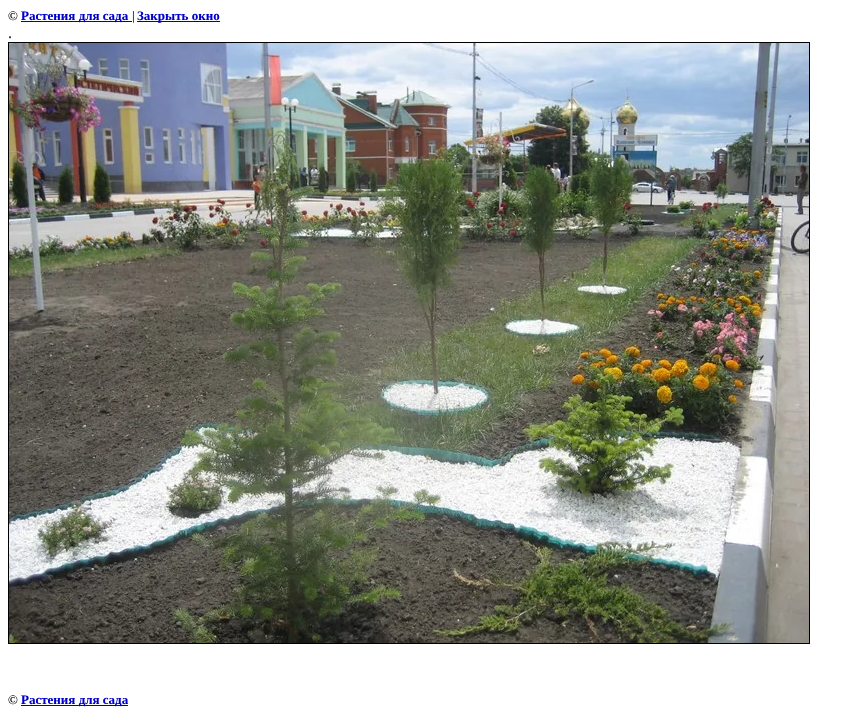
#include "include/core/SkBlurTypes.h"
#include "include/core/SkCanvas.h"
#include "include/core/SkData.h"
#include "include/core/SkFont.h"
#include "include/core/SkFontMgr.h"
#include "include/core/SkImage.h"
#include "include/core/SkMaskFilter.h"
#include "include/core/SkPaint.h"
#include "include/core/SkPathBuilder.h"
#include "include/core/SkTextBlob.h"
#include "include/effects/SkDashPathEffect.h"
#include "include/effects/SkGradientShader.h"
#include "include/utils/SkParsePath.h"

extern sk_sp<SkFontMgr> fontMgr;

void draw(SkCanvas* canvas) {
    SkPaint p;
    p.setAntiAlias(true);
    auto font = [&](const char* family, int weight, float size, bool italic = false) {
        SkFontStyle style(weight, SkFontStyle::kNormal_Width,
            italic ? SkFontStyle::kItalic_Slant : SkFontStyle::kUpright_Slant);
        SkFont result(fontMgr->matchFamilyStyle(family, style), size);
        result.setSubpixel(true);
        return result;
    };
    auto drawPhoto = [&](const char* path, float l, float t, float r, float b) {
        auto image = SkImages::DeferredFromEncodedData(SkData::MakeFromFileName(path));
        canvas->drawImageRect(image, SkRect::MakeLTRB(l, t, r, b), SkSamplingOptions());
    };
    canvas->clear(0xFFFFFFFF);
    auto font1 = font("Liberation Serif", 400, 13);
    p.setColor(0xFF000000);
    canvas->drawString("©", 8, 20, font1, p);
    p.setColor(0xFF0000CC);
    canvas->drawRect(SkRect::MakeLTRB(21, 21, 132, 22), p);
    auto font2 = font("Liberation Serif", 700, 13);
    canvas->drawString("Растения для сада", 21, 20, font2, p);
    p.setColor(0xFF000000);
    canvas->drawString("|", 132, 20, font1, p);
    p.setColor(0xFF0000CC);
    canvas->drawRect(SkRect::MakeLTRB(137, 21, 220, 22), p);
    canvas->drawString("Закрыть окно", 137, 20, font2, p);
    auto font3 = font("Liberation Serif", 400, 16);
    p.setColor(0xFF112365);
    canvas->drawString(".", 8, 38, font3, p);
    p.setStyle(SkPaint::kStroke_Style);
    p.setStrokeWidth(1);
    p.setColor(0xFF000000);
    canvas->drawRect(SkRect::MakeLTRB(8.5f, 42.5f, 809.5f, 643.5f), p);
    drawPhoto("media/1.png", 9, 43, 809, 643);
    p.setStyle(SkPaint::kFill_Style);
    canvas->drawString("©", 8, 704, font1, p);
    p.setColor(0xFF0000CC);
    canvas->drawRect(SkRect::MakeLTRB(21, 705, 128, 706), p);
    canvas->drawString("Растения для сада", 21, 704, font2, p);
}
